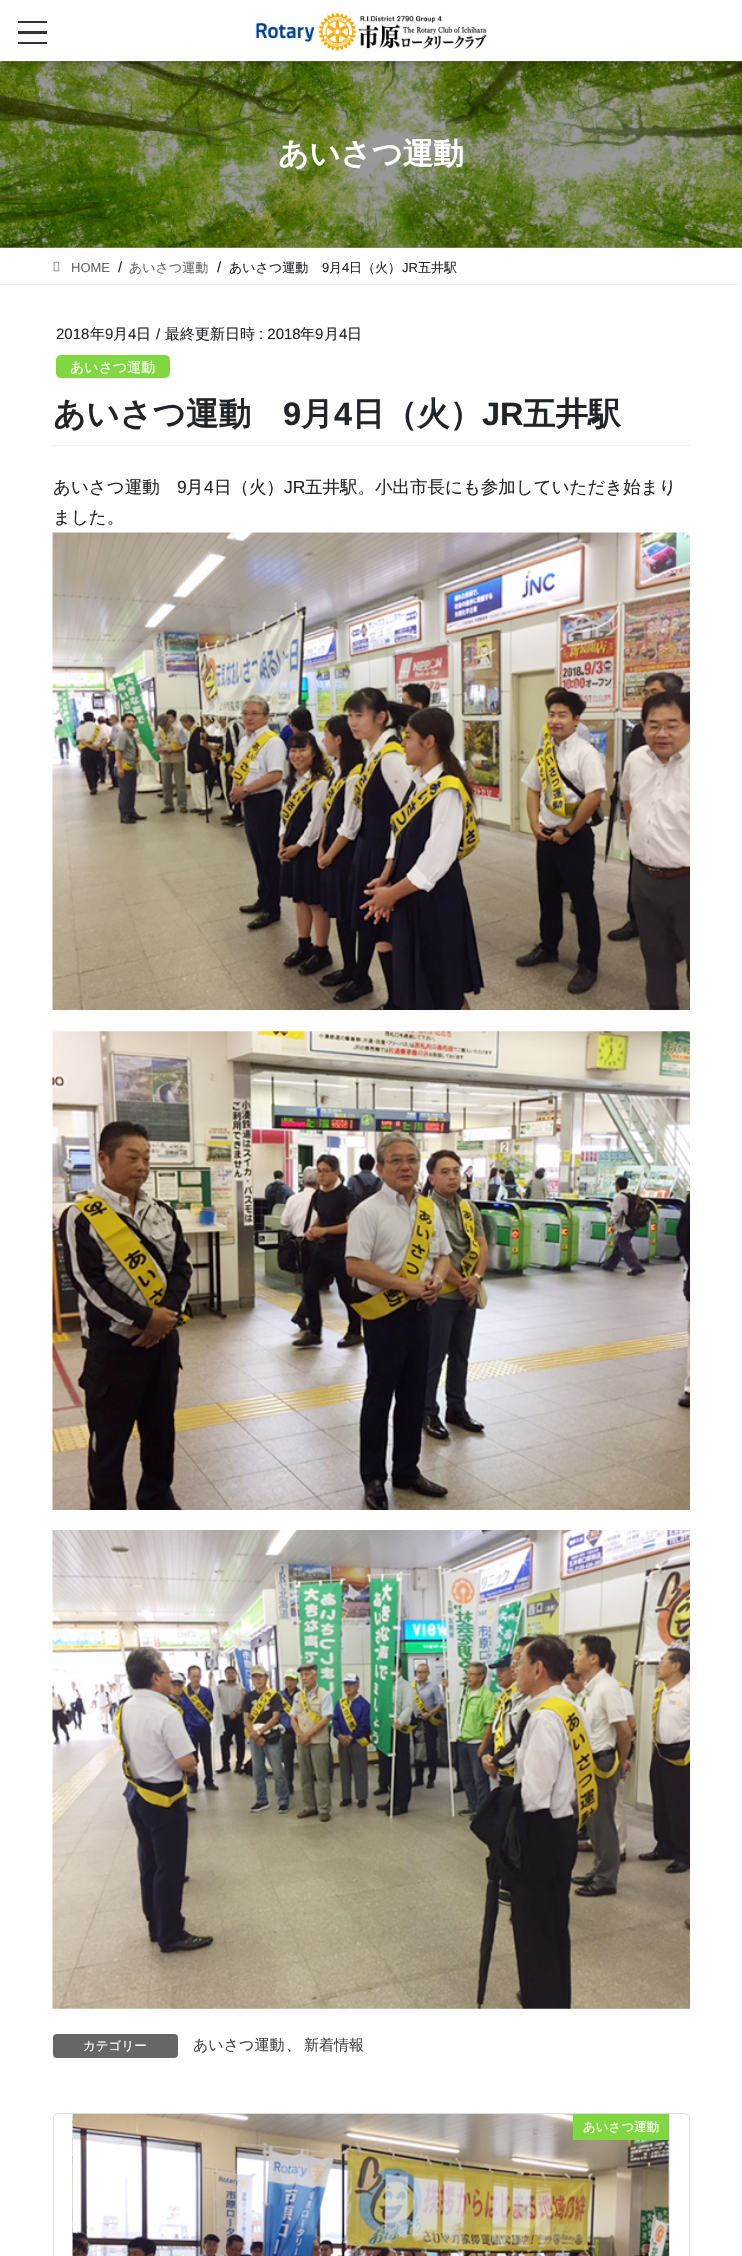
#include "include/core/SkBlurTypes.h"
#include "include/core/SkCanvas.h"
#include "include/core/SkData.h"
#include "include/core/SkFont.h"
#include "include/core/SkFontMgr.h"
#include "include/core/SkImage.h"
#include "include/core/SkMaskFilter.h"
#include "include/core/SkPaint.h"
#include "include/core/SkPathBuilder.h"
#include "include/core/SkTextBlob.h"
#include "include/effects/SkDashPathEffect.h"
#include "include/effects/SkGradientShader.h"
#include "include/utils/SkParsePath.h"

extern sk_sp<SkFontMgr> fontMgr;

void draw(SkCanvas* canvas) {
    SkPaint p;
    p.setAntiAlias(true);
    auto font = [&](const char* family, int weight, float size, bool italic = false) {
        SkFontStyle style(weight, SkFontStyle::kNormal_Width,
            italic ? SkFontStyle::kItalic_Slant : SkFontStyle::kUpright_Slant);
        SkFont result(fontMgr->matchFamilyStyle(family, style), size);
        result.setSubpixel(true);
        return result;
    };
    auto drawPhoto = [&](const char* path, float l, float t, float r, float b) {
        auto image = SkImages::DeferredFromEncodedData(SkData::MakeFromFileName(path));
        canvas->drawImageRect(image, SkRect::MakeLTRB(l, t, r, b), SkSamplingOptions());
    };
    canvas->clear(0xFFFFFFFF);
    p.setColor(0xFF999999);
    canvas->drawRect(SkRect::MakeLTRB(0, 61, 742, 248), p);
    drawPhoto("media/2.png", 0, 61, 742, 248);
    canvas->save();
    canvas->clipRect(SkRect::MakeLTRB(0, 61, 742, 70));
    p.setColor(0x4D000000);
    p.setMaskFilter(SkMaskFilter::MakeBlur(kNormal_SkBlurStyle, 4.5f));
    canvas->drawRect(SkRect::MakeLTRB(0, 1, 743, 63), p);
    p.setMaskFilter(nullptr);
    canvas->restore();
    drawPhoto("media/1.png", 255, 13, 487, 53);
    {
        const struct { float l, t, r, b; SkColor color; } items[] = {
            {18, 21, 47, 23, 0xFF333333},
            {18, 31, 47, 34, 0xFF333333},
            {18, 42, 47, 44, 0xFF333333},
        };
        for (auto [l, t, r, b, color] : items) {
            p.setColor(color);
            canvas->drawRect(SkRect::MakeLTRB(l, t, r, b), p);
        }
    }
    auto font1 = font("WenQuanYi Zen Hei", 700, 30.5f);
    p.setColor(0xFFFFFFFF);
    canvas->drawString("あいさつ運動", 278, 164, font1, p);
    p.setColor(0xFFF2F2F2);
    canvas->drawRect(SkRect::MakeLTRB(0, 284, 742, 285), p);
    drawPhoto("media/3.png", 53, 261, 60, 272);
    auto font2 = font("Liberation Sans", 400, 13);
    p.setColor(0xFF666666);
    canvas->drawString("HOME", 71, 272, font2, p);
    auto font3 = font("Liberation Sans", 400, 15);
    p.setColor(0xFF212529);
    canvas->drawString("/", 118, 272, font3, p);
    auto font4 = font("WenQuanYi Zen Hei", 500, 13);
    p.setColor(0xFF666666);
    canvas->drawString("あいさつ運動", 129, 272, font4, p);
    p.setColor(0xFF212529);
    canvas->drawString("/", 217, 272, font3, p);
    canvas->drawString("あいさつ運動", 229, 272, font4, p);
    canvas->drawString("9", 322, 272, font2, p);
    canvas->drawString("月", 329, 272, font4, p);
    canvas->drawString("4", 342, 272, font2, p);
    canvas->drawString("日（火）", 349, 272, font4, p);
    canvas->drawString("JR", 402, 272, font2, p);
    canvas->drawString("五井駅", 418, 272, font4, p);
    p.setColor(0xFFF2F2F2);
    canvas->drawRect(SkRect::MakeLTRB(53, 445, 690, 446), p);
    p.setColor(0xFF212529);
    canvas->drawString("2018", 56, 339, font3, p);
    auto font5 = font("WenQuanYi Zen Hei", 500, 15);
    canvas->drawString("年", 90, 339, font5, p);
    canvas->drawString("9", 105, 339, font3, p);
    canvas->drawString("月", 113, 339, font5, p);
    canvas->drawString("4", 128, 339, font3, p);
    canvas->drawString("日", 136, 339, font5, p);
    canvas->drawString("/", 156, 339, font3, p);
    canvas->drawString("最終更新日時", 165, 339, font5, p);
    canvas->drawString(": 2018", 259, 339, font3, p);
    canvas->drawString("年", 300, 339, font5, p);
    canvas->drawString("9", 315, 339, font3, p);
    canvas->drawString("月", 324, 339, font5, p);
    canvas->drawString("4", 339, 339, font3, p);
    canvas->drawString("日", 347, 339, font5, p);
    p.setColor(0xFF81D742);
    canvas->drawRoundRect(SkRect::MakeLTRB(56, 355, 170, 378), 5, 5, p);
    auto font6 = font("WenQuanYi Zen Hei", 500, 14);
    p.setColor(0xFFFFFFFF);
    canvas->drawString("あいさつ運動", 70, 372, font6, p);
    auto font7 = font("WenQuanYi Zen Hei", 700, 32.5f);
    p.setColor(0xFF212529);
    canvas->drawString("あいさつ運動", 53, 425, font7, p);
    auto font8 = font("Liberation Sans", 700, 32.5f);
    canvas->drawString("9", 283, 425, font8, p);
    canvas->drawString("月", 301, 425, font7, p);
    canvas->drawString("4", 334, 425, font8, p);
    canvas->drawString("日（火）", 352, 425, font7, p);
    canvas->drawString("JR", 482, 425, font8, p);
    canvas->drawString("五井駅", 523, 425, font7, p);
    auto font9 = font("WenQuanYi Zen Hei", 500, 17.5f);
    canvas->drawString("あいさつ運動", 53, 493, font9, p);
    auto font10 = font("Liberation Sans", 400, 17.5f);
    canvas->drawString("9", 177, 493, font10, p);
    canvas->drawString("月", 186, 493, font9, p);
    canvas->drawString("4", 204, 493, font10, p);
    canvas->drawString("日（火）", 214, 493, font9, p);
    canvas->drawString("JR", 284, 493, font10, p);
    canvas->drawString("五井駅。小出市長にも参加していただき始まり", 305, 493, font9, p);
    canvas->drawString("ました。", 53, 523, font9, p);
    drawPhoto("media/4.png", 52, 532, 690, 1010);
    drawPhoto("media/5.png", 52, 1031, 690, 1510);
    drawPhoto("media/6.png", 52, 1530, 690, 2009);
    p.setColor(0xFF666666);
    canvas->drawRoundRect(SkRect::MakeLTRB(53, 2034, 178, 2058), 4, 4, p);
    auto font11 = font("WenQuanYi Zen Hei", 500, 12.5f);
    p.setColor(0xFFFFFFFF);
    canvas->drawString("カテゴリー", 83, 2050, font11, p);
    p.setColor(0xFF464646);
    canvas->drawString("あいさつ運動", 193, 2050, font5, p);
    p.setColor(0xFF212529);
    canvas->drawString("、", 286, 2050, font5, p);
    p.setColor(0xFF464646);
    canvas->drawString("新着情報", 304, 2050, font5, p);
    p.setStyle(SkPaint::kStroke_Style);
    p.setStrokeWidth(1);
    p.setColor(0xFFDFDFDF);
    canvas->drawRoundRect(SkRect::MakeLTRB(53.5f, 2113.5f, 689.5f, 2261.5f), 4.5f, 4.5f, p);
    drawPhoto("media/7.png", 72, 2113, 670, 2256);
    p.setStyle(SkPaint::kFill_Style);
    p.setColor(0xFFE5E5E5);
    canvas->drawRect(SkRect::MakeLTRB(669, 2114, 670, 2256), p);
    p.setColor(0xFF81D742);
    canvas->drawRect(SkRect::MakeLTRB(573, 2114, 669, 2140), p);
    p.setColor(0xFFFFFFFF);
    canvas->drawString("あいさつ運動", 583, 2131, font11, p);
}
